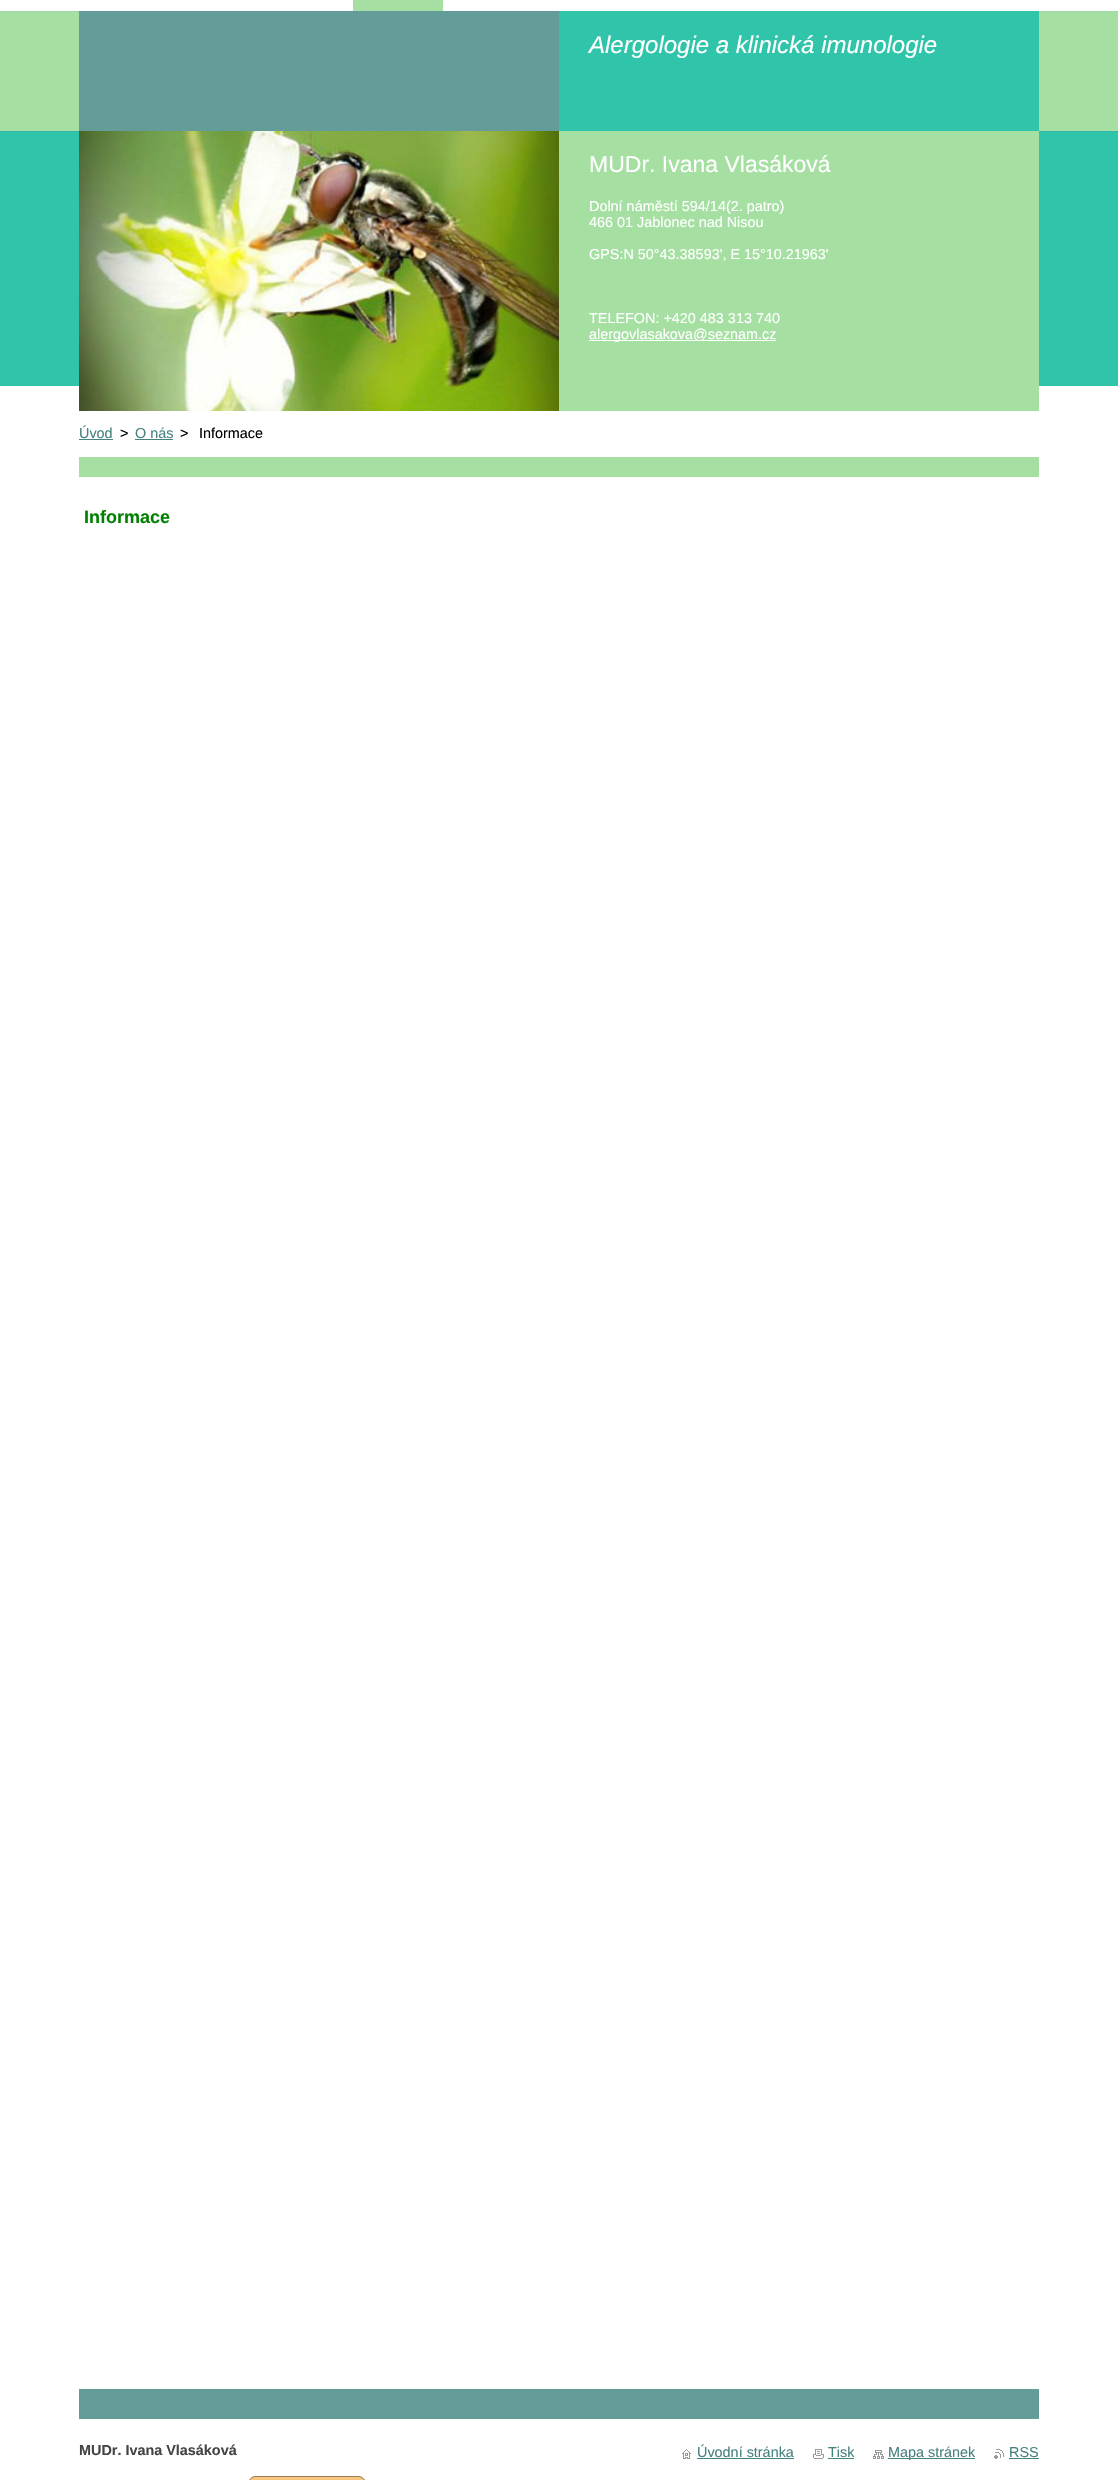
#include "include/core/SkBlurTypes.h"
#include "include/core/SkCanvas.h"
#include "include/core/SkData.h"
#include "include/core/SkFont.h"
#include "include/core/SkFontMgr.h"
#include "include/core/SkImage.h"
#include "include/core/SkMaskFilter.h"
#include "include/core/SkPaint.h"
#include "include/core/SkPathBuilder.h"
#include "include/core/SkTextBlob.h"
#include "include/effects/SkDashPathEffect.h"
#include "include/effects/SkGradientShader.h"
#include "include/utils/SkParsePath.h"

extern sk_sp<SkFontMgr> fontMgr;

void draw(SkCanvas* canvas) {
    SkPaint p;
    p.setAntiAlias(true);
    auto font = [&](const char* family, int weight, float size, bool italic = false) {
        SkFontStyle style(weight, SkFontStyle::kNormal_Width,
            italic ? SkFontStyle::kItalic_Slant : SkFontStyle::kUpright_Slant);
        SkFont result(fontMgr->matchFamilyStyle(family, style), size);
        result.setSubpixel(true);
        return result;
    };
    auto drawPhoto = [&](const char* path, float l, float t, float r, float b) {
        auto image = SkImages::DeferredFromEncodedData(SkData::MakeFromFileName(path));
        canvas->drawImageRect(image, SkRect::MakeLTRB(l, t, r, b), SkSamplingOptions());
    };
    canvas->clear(0xFFFFFFFF);
    drawPhoto("media/1.png", 0, 11, 1118, 386);
    {
        const struct { float l, t, r, b; SkColor color; } items[] = {
            {353, 0, 443, 11, 0xFFA5DFA2},
            {79, 11, 559, 131, 0xFF649C9A},
            {559, 11, 1039, 131, 0xFF30C5AB},
        };
        for (auto [l, t, r, b, color] : items) {
            p.setColor(color);
            canvas->drawRect(SkRect::MakeLTRB(l, t, r, b), p);
        }
    }
    auto font1 = font("Liberation Sans", 400, 24, true);
    p.setColor(0xFFFFFFFF);
    canvas->drawString("Alergologie a klinická imunologie", 589, 53, font1, p);
    drawPhoto("media/2.png", 79, 131, 559, 411);
    p.setColor(0xFFA5DFA2);
    canvas->drawRect(SkRect::MakeLTRB(559, 131, 1039, 411), p);
    auto font2 = font("Liberation Sans", 400, 23);
    p.setColor(0xFFFFFFFF);
    canvas->drawString("MUDr. Ivana Vlasáková", 589, 172, font2, p);
    auto font3 = font("Liberation Sans", 400, 14.4f);
    {
        const struct { const char* s; float x, y; } items[] = {
            {"Dolní náměstí 594/14(2. patro)", 589, 211},
            {"466 01 Jablonec nad Nisou", 589, 227},
            {"GPS:N 50°43.38593', E 15°10.21963'", 589, 259},
            {"TELEFON: +420 483 313 740", 589, 323},
        };
        for (auto [s, x, y] : items) {
            canvas->drawString(s, x, y, font3, p);
        }
    }
    canvas->drawRect(SkRect::MakeLTRB(589, 340, 776, 341), p);
    canvas->drawString("alergovlasakova@seznam.cz", 589, 339, font3, p);
    p.setColor(0xFF468280);
    canvas->drawString("Úvod", 79, 438, font3, p);
    canvas->drawRect(SkRect::MakeLTRB(79, 439, 113, 440), p);
    p.setColor(0xFF000000);
    canvas->drawString(">", 120, 438, font3, p);
    p.setColor(0xFF468280);
    canvas->drawString("O nás", 135, 438, font3, p);
    canvas->drawRect(SkRect::MakeLTRB(135, 439, 173, 440), p);
    p.setColor(0xFF000000);
    canvas->drawString(">", 180, 438, font3, p);
    canvas->drawString("Informace", 199, 438, font3, p);
    p.setColor(0xFFA5DFA2);
    canvas->drawRect(SkRect::MakeLTRB(79, 457, 1039, 477), p);
    auto font4 = font("Liberation Sans", 700, 18);
    p.setColor(0xFF008000);
    canvas->drawString("Informace", 84, 523, font4, p);
    p.setColor(0xFF649C9A);
    canvas->drawRect(SkRect::MakeLTRB(79, 2389, 1039, 2419), p);
    auto font5 = font("Liberation Sans", 700, 14.4f);
    p.setColor(0xFF444444);
    canvas->drawString("MUDr. Ivana Vlasáková", 79, 2455, font5, p);
    drawPhoto("media/3.png", 682, 2449, 691, 2459);
    p.setColor(0xFF468280);
    canvas->drawString("Úvodní stránka", 697, 2457, font3, p);
    canvas->drawRect(SkRect::MakeLTRB(697, 2458, 794, 2459), p);
    drawPhoto("media/4.png", 813, 2449, 824, 2459);
    canvas->drawString("Tisk", 828, 2457, font3, p);
    canvas->drawRect(SkRect::MakeLTRB(828, 2458, 854, 2459), p);
    drawPhoto("media/5.png", 873, 2450, 884, 2459);
    canvas->drawRect(SkRect::MakeLTRB(888, 2458, 975, 2459), p);
    canvas->drawString("Mapa stránek", 888, 2457, font3, p);
    drawPhoto("media/6.png", 994, 2449, 1004, 2459);
    canvas->drawString("RSS", 1009, 2457, font3, p);
    canvas->drawRect(SkRect::MakeLTRB(1009, 2458, 1039, 2459), p);
    drawPhoto("media/7.png", 249, 2476, 365, 2480);
}
